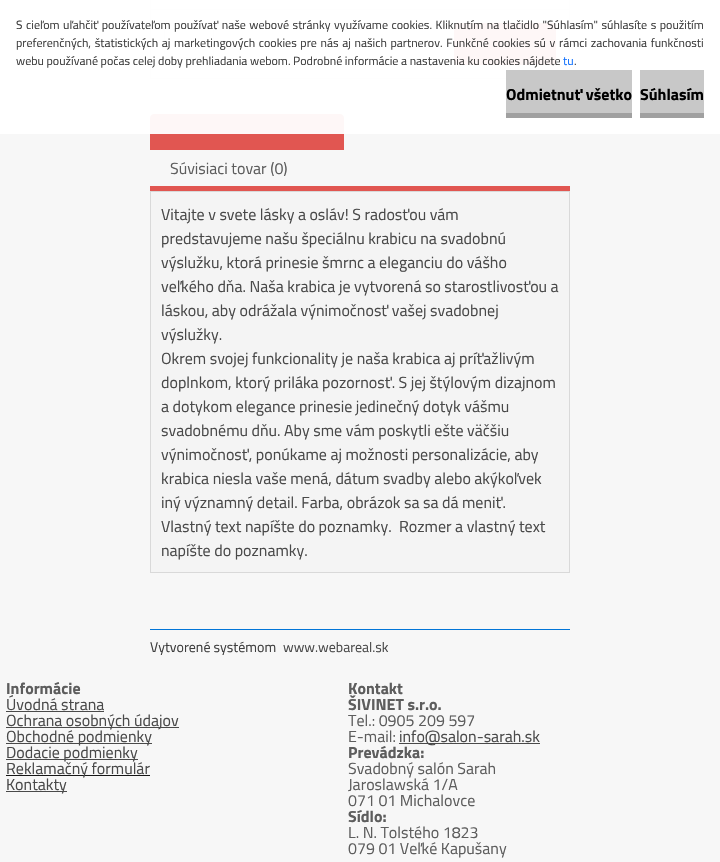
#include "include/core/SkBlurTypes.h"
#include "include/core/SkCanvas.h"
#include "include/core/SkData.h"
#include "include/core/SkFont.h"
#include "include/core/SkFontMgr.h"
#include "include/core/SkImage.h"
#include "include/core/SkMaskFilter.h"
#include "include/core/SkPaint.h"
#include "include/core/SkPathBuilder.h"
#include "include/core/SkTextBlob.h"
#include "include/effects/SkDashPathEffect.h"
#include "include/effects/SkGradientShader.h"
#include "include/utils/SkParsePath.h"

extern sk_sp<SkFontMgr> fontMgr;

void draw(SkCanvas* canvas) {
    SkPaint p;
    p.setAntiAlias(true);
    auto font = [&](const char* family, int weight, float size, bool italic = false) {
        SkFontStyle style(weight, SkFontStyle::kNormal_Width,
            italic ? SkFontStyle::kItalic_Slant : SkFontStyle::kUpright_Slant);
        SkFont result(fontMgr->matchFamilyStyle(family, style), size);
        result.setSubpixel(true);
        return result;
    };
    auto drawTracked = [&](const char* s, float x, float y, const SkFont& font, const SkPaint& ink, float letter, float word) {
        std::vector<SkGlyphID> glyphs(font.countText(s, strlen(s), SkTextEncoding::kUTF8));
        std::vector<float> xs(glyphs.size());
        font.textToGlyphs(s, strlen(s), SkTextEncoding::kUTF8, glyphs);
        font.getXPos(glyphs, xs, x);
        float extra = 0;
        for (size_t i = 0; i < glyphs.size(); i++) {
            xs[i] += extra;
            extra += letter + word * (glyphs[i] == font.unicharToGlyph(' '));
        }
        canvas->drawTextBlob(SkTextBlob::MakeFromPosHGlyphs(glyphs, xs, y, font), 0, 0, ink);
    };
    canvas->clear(0xFFF7F7F7);
    {
        const struct { float l, t, r, b; SkColor color; } items[] = {
            {151, 0, 569, 9, 0xFFFFFFFF},
            {569, 0, 570, 70, 0xFFD9D9D9},
            {150, 78, 506, 79, 0xFFD9D9D9},
            {150, 0, 151, 79, 0xFFD9D9D9},
            {151, 10, 569, 78, 0xFFF4F4F4},
            {150, 9, 570, 10, 0xFFD9D9D9},
        };
        for (auto [l, t, r, b, color] : items) {
            p.setColor(color);
            canvas->drawRect(SkRect::MakeLTRB(l, t, r, b), p);
        }
    }
    p.setColor(0xFFFFFFFF);
    canvas->drawRoundRect(SkRect::MakeLTRB(164.5f, 23.5f, 213.5f, 57.5f), 3.5f, 3.5f, p);
    p.setStyle(SkPaint::kStroke_Style);
    p.setStrokeWidth(1);
    p.setColor(0xFFD9D9D9);
    canvas->drawRoundRect(SkRect::MakeLTRB(164.5f, 23.5f, 213.5f, 57.5f), 3.5f, 3.5f, p);
    p.setStyle(SkPaint::kFill_Style);
    p.setColor(0xFFE15651);
    canvas->drawRoundRect(SkRect::MakeLTRB(454, 23, 556, 65), 3, 3, p);
    canvas->drawPath(SkPathBuilder().moveTo(154, 114).lineTo(340, 114).cubicTo(342, 114, 344, 116, 344, 118).lineTo(344, 150).lineTo(150, 150).lineTo(150, 118).cubicTo(150, 116, 152, 114, 154, 114).close().detach(), p);
    p.setColor(0xF2FFFFFF);
    canvas->drawRect(SkRect::MakeLTRB(0, 0, 720, 134), p);
    auto font1 = font("Titillium Web", 400, 12);
    p.setColor(0xFF3F3F3F);
    drawTracked("S cieľom uľahčiť používateľom používať naše webové stránky využívame cookies. Kliknutím na tlačidlo \"Súhlasím\" súhlasíte s použitím", 16, 29, font1, p, 0, 0.9f);
    drawTracked("preferenčných, štatistických aj marketingových cookies pre nás aj našich partnerov. Funkčné cookies sú v rámci zachovania funkčnosti", 16, 47, font1, p, 0, 1);
    canvas->drawString("webu používané počas celej doby prehliadania webom. Podrobné informácie a nastavenia ku cookies nájdete", 16, 65, font1, p);
    p.setColor(0xFF0D6EFD);
    canvas->drawString("tu", 563, 65, font1, p);
    p.setColor(0xFF3F3F3F);
    canvas->drawString(".", 574, 65, font1, p);
    p.setColor(0xFFC8C8C8);
    canvas->drawRect(SkRect::MakeLTRB(506, 70, 632, 113), p);
    p.setColor(0xFFA0A0A0);
    canvas->drawRect(SkRect::MakeLTRB(506, 113, 632, 118), p);
    auto font2 = font("Titillium Web", 700, 16);
    p.setColor(0xFF000000);
    canvas->drawString("Odmietnuť všetko", 506, 100, font2, p);
    p.setColor(0xFFC8C8C8);
    canvas->drawRect(SkRect::MakeLTRB(640, 70, 704, 113), p);
    p.setColor(0xFFA0A0A0);
    canvas->drawRect(SkRect::MakeLTRB(640, 113, 704, 118), p);
    p.setColor(0xFF000000);
    canvas->drawString("Súhlasím", 640, 100, font2, p);
    p.setColor(0xFFE15651);
    canvas->drawRect(SkRect::MakeLTRB(150, 186, 570, 191), p);
    auto font3 = font("Titillium Web", 400, 16);
    p.setColor(0xFF5D5D5D);
    canvas->drawString("Súvisiaci tovar (0)", 170, 174, font3, p);
    p.setColor(0xFFF4F4F4);
    canvas->drawRect(SkRect::MakeLTRB(150.5f, 191.5f, 569.5f, 572.5f), p);
    p.setStyle(SkPaint::kStroke_Style);
    p.setColor(0xFFD9D9D9);
    canvas->drawRect(SkRect::MakeLTRB(150.5f, 191.5f, 569.5f, 572.5f), p);
    p.setStyle(SkPaint::kFill_Style);
    p.setColor(0xFF494949);
    {
        const struct { const char* s; float x, y; } items[] = {
            {"Vitajte v svete lásky a osláv! S radosťou vám", 161, 220},
            {"predstavujeme našu špeciálnu krabicu na svadobnú", 161, 244},
            {"výslužku, ktorá prinesie šmrnc a eleganciu do vášho", 161, 268},
            {"veľkého dňa. Naša krabica je vytvorená so starostlivosťou a", 161, 292},
            {"láskou, aby odrážala výnimočnosť vašej svadobnej", 161, 316},
            {"výslužky.", 161, 340},
            {"Okrem svojej funkcionality je naša krabica aj príťažlivým", 161, 364},
            {"doplnkom, ktorý priláka pozornosť. S jej štýlovým dizajnom", 161, 388},
            {"a dotykom elegance prinesie jedinečný dotyk vášmu", 161, 412},
            {"svadobnému dňu. Aby sme vám poskytli ešte väčšiu", 161, 436},
            {"výnimočnosť, ponúkame aj možnosti personalizácie, aby", 161, 460},
            {"krabica niesla vaše mená, dátum svadby alebo akýkoľvek", 161, 484},
            {"iný významný detail. Farba, obrázok sa sa dá meniť.", 161, 508},
            {"Vlastný text napíšte do poznamky.", 161, 532},
            {"Rozmer a vlastný text", 399, 532},
            {"napíšte do poznamky.", 161, 556},
        };
        for (auto [s, x, y] : items) {
            canvas->drawString(s, x, y, font3, p);
        }
    }
    p.setColor(0xFF0175D7);
    canvas->drawRect(SkRect::MakeLTRB(150, 629, 570, 630), p);
    auto font4 = font("Titillium Web", 400, 14);
    p.setColor(0xFF3F3F3F);
    canvas->drawString("Vytvorené systémom", 150, 652, font4, p);
    p.setColor(0xFF494949);
    canvas->drawString("www.webareal.sk", 283, 652, font4, p);
    p.setColor(0xFF5D5D5D);
    canvas->drawString("Informácie", 6, 694, font2, p);
    p.setColor(0xFF494949);
    canvas->drawString("Úvodná strana", 6, 710, font3, p);
    p.setColor(0xFF4A4A4A);
    canvas->drawRect(SkRect::MakeLTRB(6, 711, 104, 712), p);
    canvas->drawRect(SkRect::MakeLTRB(6, 727, 179, 728), p);
    p.setColor(0xFF494949);
    canvas->drawString("Ochrana osobných údajov", 6, 726, font3, p);
    p.setColor(0xFF4A4A4A);
    canvas->drawRect(SkRect::MakeLTRB(6, 743, 152, 744), p);
    p.setColor(0xFF494949);
    canvas->drawString("Obchodné podmienky", 6, 742, font3, p);
    p.setColor(0xFF4A4A4A);
    canvas->drawRect(SkRect::MakeLTRB(6, 759, 138, 760), p);
    p.setColor(0xFF494949);
    canvas->drawString("Dodacie podmienky", 6, 758, font3, p);
    p.setColor(0xFF161616);
    canvas->drawRect(SkRect::MakeLTRB(6, 775, 150, 776), p);
    p.setColor(0xFF494949);
    canvas->drawString("Reklamačný formulár", 6, 774, font3, p);
    p.setColor(0xFF4A4A4A);
    canvas->drawRect(SkRect::MakeLTRB(6, 791, 67, 792), p);
    p.setColor(0xFF494949);
    canvas->drawString("Kontakty", 6, 790, font3, p);
    p.setColor(0xFF5D5D5D);
    canvas->drawString("Kontakt", 348, 694, font2, p);
    canvas->drawString("ŠIVINET s.r.o.", 348, 710, font2, p);
    canvas->drawString("Tel.: 0905 209 597", 348, 726, font3, p);
    canvas->drawString("E-mail:", 348, 742, font3, p);
    p.setColor(0xFF4A4A4A);
    canvas->drawRect(SkRect::MakeLTRB(399, 743, 540, 744), p);
    p.setColor(0xFF494949);
    canvas->drawString("info@salon-sarah.sk", 399, 742, font3, p);
    p.setColor(0xFF5D5D5D);
    canvas->drawString("Prevádzka:", 348, 758, font2, p);
    {
        const struct { const char* s; float x, y; } items[] = {
            {"Svadobný salón Sarah", 348, 774},
            {"Jaroslawská 1/A", 348, 790},
            {"071 01 Michalovce", 348, 806},
        };
        for (auto [s, x, y] : items) {
            canvas->drawString(s, x, y, font3, p);
        }
    }
    canvas->drawString("Sídlo:", 348, 822, font2, p);
    canvas->drawString("L. N. Tolstého 1823", 348, 838, font3, p);
    canvas->drawString("079 01 Veľké Kapušany", 348, 854, font3, p);
}
